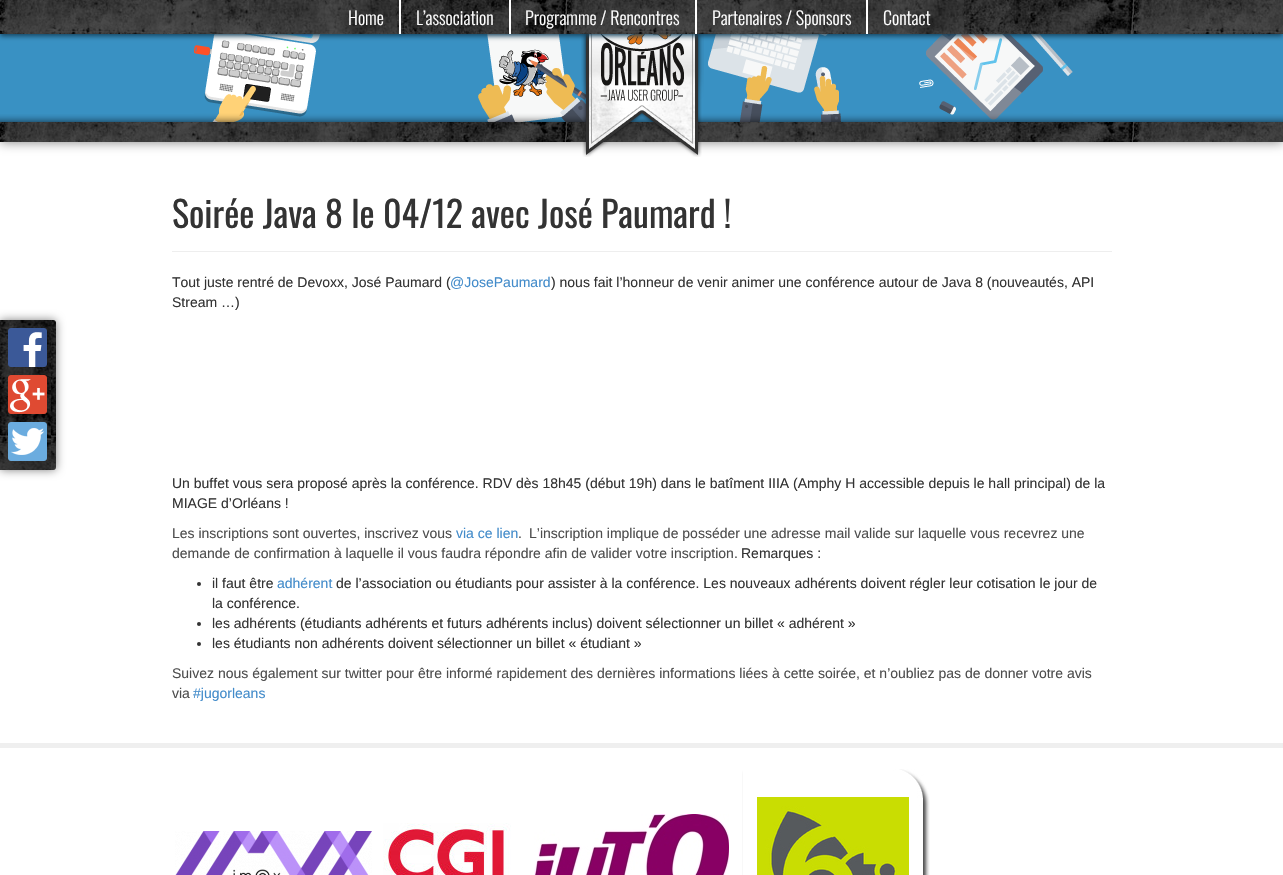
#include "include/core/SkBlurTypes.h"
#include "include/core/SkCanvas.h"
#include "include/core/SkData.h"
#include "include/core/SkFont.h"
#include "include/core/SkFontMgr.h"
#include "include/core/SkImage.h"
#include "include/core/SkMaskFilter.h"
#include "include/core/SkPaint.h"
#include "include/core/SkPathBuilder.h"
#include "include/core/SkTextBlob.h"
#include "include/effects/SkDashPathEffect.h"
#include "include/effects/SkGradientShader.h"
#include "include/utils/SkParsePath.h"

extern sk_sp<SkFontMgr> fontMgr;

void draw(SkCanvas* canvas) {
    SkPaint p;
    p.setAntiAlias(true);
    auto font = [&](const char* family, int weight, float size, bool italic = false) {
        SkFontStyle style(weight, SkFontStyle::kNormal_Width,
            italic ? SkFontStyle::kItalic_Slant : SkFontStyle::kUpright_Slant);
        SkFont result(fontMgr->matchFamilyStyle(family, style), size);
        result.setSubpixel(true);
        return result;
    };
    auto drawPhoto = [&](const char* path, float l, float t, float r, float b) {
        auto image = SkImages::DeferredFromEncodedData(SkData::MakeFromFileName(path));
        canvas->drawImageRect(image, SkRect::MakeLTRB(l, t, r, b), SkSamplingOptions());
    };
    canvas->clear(0xFFFFFFFF);
    p.setColor(0xFF808080);
    p.setMaskFilter(SkMaskFilter::MakeBlur(kNormal_SkBlurStyle, 6));
    canvas->drawRect(SkRect::MakeLTRB(0, 122, 1283, 142), p);
    p.setMaskFilter(nullptr);
    p.setColor(0xFF3991C3);
    canvas->drawRect(SkRect::MakeLTRB(0, 34, 1283, 114), p);
    drawPhoto("media/2.png", 0, 114, 1283, 122);
    drawPhoto("media/3.png", 194, 34, 1073, 122);
    drawPhoto("media/5.png", 0, 122, 1283, 142);
    drawPhoto("media/4.png", 581, 34, 704, 157);
    p.setColor(0xFF13415C);
    p.setMaskFilter(SkMaskFilter::MakeBlur(kNormal_SkBlurStyle, 2.5f));
    canvas->drawRect(SkRect::MakeLTRB(0, 2, 1283, 36), p);
    p.setMaskFilter(nullptr);
    drawPhoto("media/1.png", 0, 0, 1283, 34);
    p.setColor(0xFFFFFFFF);
    canvas->drawRect(SkRect::MakeLTRB(399, 0, 401, 34), p);
    auto font1 = font("Oswald", 300, 18);
    canvas->drawString("Home", 348, 25, font1, p);
    canvas->drawRect(SkRect::MakeLTRB(509, 0, 511, 34), p);
    canvas->drawString("L’association", 416, 25, font1, p);
    canvas->drawRect(SkRect::MakeLTRB(695, 0, 697, 34), p);
    canvas->drawString("Programme / Rencontres", 525, 25, font1, p);
    canvas->drawRect(SkRect::MakeLTRB(866, 0, 868, 34), p);
    canvas->drawString("Partenaires / Sponsors", 712, 25, font1, p);
    canvas->drawString("Contact", 883, 25, font1, p);
    p.setColor(0xFF808080);
    p.setMaskFilter(SkMaskFilter::MakeBlur(kNormal_SkBlurStyle, 5));
    canvas->drawRoundRect(SkRect::MakeLTRB(0, 320, 56, 470), 3, 3, p);
    p.setMaskFilter(nullptr);
    drawPhoto("media/6.png", 0, 320, 56, 470);
    drawPhoto("media/7.png", 8, 328, 47, 367);
    drawPhoto("media/8.png", 8, 375, 47, 414);
    drawPhoto("media/9.png", 8, 422, 47, 461);
    p.setColor(0xFFEEEEEE);
    canvas->drawRect(SkRect::MakeLTRB(172, 251, 1112, 252), p);
    auto font2 = font("Oswald", 400, 36);
    p.setColor(0xFF333333);
    canvas->drawString("Soirée Java 8 le 04/12 avec José Paumard !", 172, 228, font2, p);
    auto font3 = font("Liberation Sans", 400, 14);
    canvas->drawString("Tout juste rentré de Devoxx, José Paumard (", 172, 287, font3, p);
    p.setColor(0xFF428BCA);
    canvas->drawString("@JosePaumard", 450, 287, font3, p);
    p.setColor(0xFF333333);
    {
        const struct { const char* s; float x, y; } items[] = {
            {") nous fait l’honneur de venir animer une conférence autour de Java 8 (nouveautés, API", 551, 287},
            {"Stream …)", 172, 307},
            {"Un buffet vous sera proposé après la conférence. RDV dès 18h45 (début 19h) dans le batîment IIIA (Amphy H accessible depuis le hall principal) de la", 172, 488},
            {"MIAGE d’Orléans !", 172, 508},
        };
        for (auto [s, x, y] : items) {
            canvas->drawString(s, x, y, font3, p);
        }
    }
    p.setColor(0xFF4D4D4D);
    canvas->drawString("Les inscriptions sont ouvertes, inscrivez vous", 172, 538, font3, p);
    p.setColor(0xFF428BCA);
    canvas->drawString("via ce lien", 456, 538, font3, p);
    p.setColor(0xFF4D4D4D);
    {
        const struct { const char* s; float x, y; } items[] = {
            {".", 518, 538},
            {"L’inscription implique de posséder une adresse mail valide sur laquelle vous recevrez une", 529, 538},
            {"demande de confirmation à laquelle il vous faudra répondre afin de valider votre inscription.", 172, 558},
        };
        for (auto [s, x, y] : items) {
            canvas->drawString(s, x, y, font3, p);
        }
    }
    p.setColor(0xFF333333);
    canvas->drawString("Remarques :", 741, 558, font3, p);
    canvas->drawCircle(199, 584, 2, p);
    canvas->drawString("il faut être", 212, 588, font3, p);
    p.setColor(0xFF428BCA);
    canvas->drawString("adhérent", 277, 588, font3, p);
    p.setColor(0xFF333333);
    canvas->drawString("de l’association ou étudiants pour assister à la conférence. Les nouveaux adhérents doivent régler leur cotisation le jour de", 336, 588, font3, p);
    canvas->drawString("la conférence.", 212, 608, font3, p);
    canvas->drawCircle(199, 624, 2, p);
    canvas->drawString("les adhérents (étudiants adhérents et futurs adhérents inclus) doivent sélectionner un billet « adhérent »", 212, 628, font3, p);
    canvas->drawCircle(199, 644, 2, p);
    canvas->drawString("les étudiants non adhérents doivent sélectionner un billet « étudiant »", 212, 648, font3, p);
    p.setColor(0xFF4D4D4D);
    canvas->drawString("Suivez nous également sur twitter pour être informé rapidement des dernières informations liées à cette soirée, et n’oubliez pas de donner votre avis", 172, 678, font3, p);
    canvas->drawString("via", 172, 698, font3, p);
    p.setColor(0xFF428BCA);
    canvas->drawString("#jugorleans", 193, 698, font3, p);
    p.setColor(0xFFEFEFEF);
    canvas->drawRect(SkRect::MakeLTRB(0, 743, 1283, 748), p);
    drawPhoto("media/10.png", 175, 831, 372, 875);
    drawPhoto("media/11.png", 383, 823, 511, 875);
    drawPhoto("media/12.png", 534, 814, 729, 875);
    drawPhoto("media/13.png", 742, 769, 930, 875);
}
